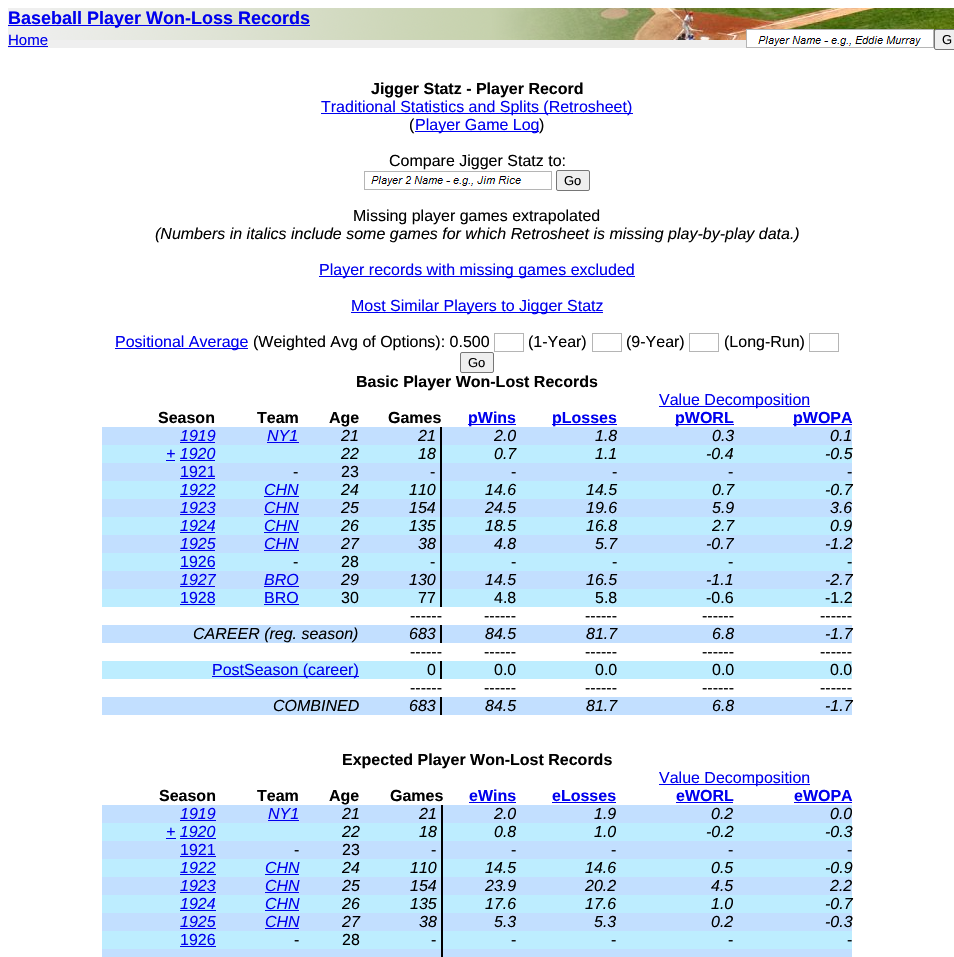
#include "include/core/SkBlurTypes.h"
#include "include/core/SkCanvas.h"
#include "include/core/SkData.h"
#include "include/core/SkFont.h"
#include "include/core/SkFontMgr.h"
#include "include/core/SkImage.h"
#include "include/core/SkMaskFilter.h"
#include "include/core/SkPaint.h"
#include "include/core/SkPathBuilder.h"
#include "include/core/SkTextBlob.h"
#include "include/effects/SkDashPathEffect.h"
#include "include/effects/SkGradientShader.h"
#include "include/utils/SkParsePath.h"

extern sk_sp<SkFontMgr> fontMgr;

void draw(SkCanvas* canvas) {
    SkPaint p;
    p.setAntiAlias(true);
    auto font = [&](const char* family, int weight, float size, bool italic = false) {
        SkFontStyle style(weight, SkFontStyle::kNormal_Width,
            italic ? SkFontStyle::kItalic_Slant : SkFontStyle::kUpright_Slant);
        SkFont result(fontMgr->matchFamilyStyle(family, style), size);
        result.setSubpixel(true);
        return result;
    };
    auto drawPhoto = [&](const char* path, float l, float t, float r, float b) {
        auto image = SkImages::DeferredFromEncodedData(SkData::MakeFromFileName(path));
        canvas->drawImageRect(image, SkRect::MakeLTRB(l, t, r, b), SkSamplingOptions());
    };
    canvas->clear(0xFFFFFFFF);
    p.setColor(0xFFEFEFEF);
    canvas->drawRect(SkRect::MakeLTRB(8, 8, 746, 48), p);
    drawPhoto("media/1.png", 50, 8, 954, 40);
    p.setColor(0xFF0000EE);
    canvas->drawRect(SkRect::MakeLTRB(8, 25, 310, 26), p);
    auto font1 = font("Liberation Sans", 700, 18);
    canvas->drawString("Baseball Player Won-Loss Records", 8, 24, font1, p);
    auto font2 = font("Liberation Sans", 400, 15);
    canvas->drawString("Home", 8, 45, font2, p);
    canvas->drawRect(SkRect::MakeLTRB(8, 46, 48, 47), p);
    p.setColor(0xFFFFFFFF);
    canvas->drawRect(SkRect::MakeLTRB(747, 30, 933, 40), p);
    drawPhoto("media/2.png", 758, 36, 921, 46);
    p.setStyle(SkPaint::kStroke_Style);
    p.setStrokeWidth(1);
    p.setColor(0xFFB5B5B5);
    canvas->drawRect(SkRect::MakeLTRB(746.5f, 29.5f, 933.5f, 47.5f), p);
    p.setStyle(SkPaint::kFill_Style);
    p.setColor(0xFFEFEFEF);
    canvas->drawRoundRect(SkRect::MakeLTRB(934.5f, 29.5f, 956.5f, 49.5f), 1.5f, 1.5f, p);
    p.setStyle(SkPaint::kStroke_Style);
    p.setColor(0xFF767676);
    canvas->drawRoundRect(SkRect::MakeLTRB(934.5f, 29.5f, 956.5f, 49.5f), 1.5f, 1.5f, p);
    auto font3 = font("Liberation Sans", 400, 13);
    p.setStyle(SkPaint::kFill_Style);
    p.setColor(0xFF000000);
    canvas->drawString("G", 942, 44, font3, p);
    auto font4 = font("Liberation Sans", 700, 16);
    canvas->drawString("Jigger Statz - Player Record", 371, 94, font4, p);
    p.setColor(0xFF0000EE);
    canvas->drawRect(SkRect::MakeLTRB(321, 113, 633, 114), p);
    auto font5 = font("Liberation Sans", 400, 16);
    canvas->drawString("Traditional Statistics and Splits (Retrosheet)", 321, 112, font5, p);
    p.setColor(0xFF000000);
    canvas->drawString("(", 409, 130, font5, p);
    p.setColor(0xFF0000EE);
    canvas->drawRect(SkRect::MakeLTRB(415, 131, 539, 132), p);
    canvas->drawString("Player Game Log", 415, 130, font5, p);
    p.setColor(0xFF000000);
    canvas->drawString(")", 539, 130, font5, p);
    canvas->drawString("Compare Jigger Statz to:", 389, 166, font5, p);
    drawPhoto("media/3.png", 371, 176, 522, 186);
    p.setStyle(SkPaint::kStroke_Style);
    p.setColor(0xFFB5B5B5);
    canvas->drawRect(SkRect::MakeLTRB(364.5f, 171.5f, 551.5f, 189.5f), p);
    p.setStyle(SkPaint::kFill_Style);
    p.setColor(0xFFEFEFEF);
    canvas->drawRoundRect(SkRect::MakeLTRB(556.5f, 170.5f, 589.5f, 190.5f), 1.5f, 1.5f, p);
    p.setStyle(SkPaint::kStroke_Style);
    p.setColor(0xFF767676);
    canvas->drawRoundRect(SkRect::MakeLTRB(556.5f, 170.5f, 589.5f, 190.5f), 1.5f, 1.5f, p);
    p.setStyle(SkPaint::kFill_Style);
    p.setColor(0xFF000000);
    canvas->drawString("Go", 564, 185, font3, p);
    canvas->drawString("Missing player games extrapolated", 353, 221, font5, p);
    auto font6 = font("Liberation Sans", 400, 16, true);
    canvas->drawString("(Numbers in italics include some games for which Retrosheet is missing play-by-play data.)", 155, 239, font6, p);
    p.setColor(0xFF0000EE);
    canvas->drawRect(SkRect::MakeLTRB(319, 276, 635, 277), p);
    canvas->drawString("Player records with missing games excluded", 319, 275, font5, p);
    canvas->drawRect(SkRect::MakeLTRB(351, 312, 603, 313), p);
    canvas->drawString("Most Similar Players to Jigger Statz", 351, 311, font5, p);
    canvas->drawRect(SkRect::MakeLTRB(115, 348, 248, 349), p);
    canvas->drawString("Positional Average", 115, 347, font5, p);
    p.setColor(0xFF000000);
    canvas->drawString("(Weighted Avg of Options): 0.500", 253, 347, font5, p);
    p.setStyle(SkPaint::kStroke_Style);
    p.setColor(0xFFB5B5B5);
    canvas->drawRect(SkRect::MakeLTRB(494.5f, 333.5f, 523.5f, 351.5f), p);
    p.setStyle(SkPaint::kFill_Style);
    p.setColor(0xFF000000);
    canvas->drawString("(1-Year)", 528, 347, font5, p);
    p.setStyle(SkPaint::kStroke_Style);
    p.setColor(0xFFB5B5B5);
    canvas->drawRect(SkRect::MakeLTRB(592.5f, 333.5f, 621.5f, 351.5f), p);
    p.setStyle(SkPaint::kFill_Style);
    p.setColor(0xFF000000);
    canvas->drawString("(9-Year)", 626, 347, font5, p);
    p.setStyle(SkPaint::kStroke_Style);
    p.setColor(0xFFB5B5B5);
    canvas->drawRect(SkRect::MakeLTRB(689.5f, 333.5f, 718.5f, 351.5f), p);
    p.setStyle(SkPaint::kFill_Style);
    p.setColor(0xFF000000);
    canvas->drawString("(Long-Run)", 724, 347, font5, p);
    p.setStyle(SkPaint::kStroke_Style);
    p.setColor(0xFFB5B5B5);
    canvas->drawRect(SkRect::MakeLTRB(809.5f, 333.5f, 838.5f, 351.5f), p);
    p.setStyle(SkPaint::kFill_Style);
    p.setColor(0xFFEFEFEF);
    canvas->drawRoundRect(SkRect::MakeLTRB(460.5f, 352.5f, 493.5f, 372.5f), 1.5f, 1.5f, p);
    p.setStyle(SkPaint::kStroke_Style);
    p.setColor(0xFF767676);
    canvas->drawRoundRect(SkRect::MakeLTRB(460.5f, 352.5f, 493.5f, 372.5f), 1.5f, 1.5f, p);
    p.setStyle(SkPaint::kFill_Style);
    p.setColor(0xFF000000);
    canvas->drawString("Go", 468, 367, font3, p);
    canvas->drawString("Basic Player Won-Lost Records", 356, 387, font4, p);
    p.setColor(0xFF0000EE);
    canvas->drawRect(SkRect::MakeLTRB(659, 406, 810, 407), p);
    canvas->drawString("Value Decomposition", 659, 405, font5, p);
    p.setColor(0xFF000000);
    {
        const struct { const char* s; float x, y; } items[] = {
            {"Season", 158, 423},
            {"Team", 257, 423},
            {"Age", 329, 423},
            {"Games", 388, 423},
        };
        for (auto [s, x, y] : items) {
            canvas->drawString(s, x, y, font4, p);
        }
    }
    p.setColor(0xFF0000EE);
    canvas->drawRect(SkRect::MakeLTRB(468, 424, 516, 425), p);
    canvas->drawString("pWins", 468, 423, font4, p);
    canvas->drawRect(SkRect::MakeLTRB(552, 424, 617, 425), p);
    canvas->drawString("pLosses", 552, 423, font4, p);
    canvas->drawRect(SkRect::MakeLTRB(675, 424, 734, 425), p);
    canvas->drawString("pWORL", 675, 423, font4, p);
    canvas->drawRect(SkRect::MakeLTRB(793, 424, 852, 425), p);
    canvas->drawString("pWOPA", 793, 423, font4, p);
    p.setColor(0xFFC2DFFF);
    canvas->drawRect(SkRect::MakeLTRB(102, 427, 852, 445), p);
    p.setColor(0xFF0000EE);
    canvas->drawString("1919", 180, 441, font6, p);
    canvas->drawRect(SkRect::MakeLTRB(180, 442, 215, 443), p);
    canvas->drawString("NY1", 267, 441, font6, p);
    canvas->drawRect(SkRect::MakeLTRB(267, 442, 299, 443), p);
    p.setColor(0xFF000000);
    canvas->drawString("21", 341, 441, font6, p);
    canvas->drawRect(SkRect::MakeLTRB(440, 427, 442, 445), p);
    {
        const struct { const char* s; float x, y; } items[] = {
            {"21", 418, 441},
            {"2.0", 494, 441},
            {"1.8", 595, 441},
            {"0.3", 712, 441},
            {"0.1", 830, 441},
        };
        for (auto [s, x, y] : items) {
            canvas->drawString(s, x, y, font6, p);
        }
    }
    p.setColor(0xFFBDEDFF);
    canvas->drawRect(SkRect::MakeLTRB(102, 445, 852, 463), p);
    p.setColor(0xFF0000EE);
    canvas->drawString("+ 1920", 166, 459, font6, p);
    canvas->drawRect(SkRect::MakeLTRB(166, 460, 175, 461), p);
    canvas->drawRect(SkRect::MakeLTRB(180, 460, 215, 461), p);
    p.setColor(0xFF000000);
    canvas->drawString("22", 341, 459, font6, p);
    canvas->drawRect(SkRect::MakeLTRB(440, 445, 442, 463), p);
    {
        const struct { const char* s; float x, y; } items[] = {
            {"18", 418, 459},
            {"0.7", 494, 459},
            {"1.1", 595, 459},
            {"-0.4", 706, 459},
            {"-0.5", 825, 459},
        };
        for (auto [s, x, y] : items) {
            canvas->drawString(s, x, y, font6, p);
        }
    }
    p.setColor(0xFFC2DFFF);
    canvas->drawRect(SkRect::MakeLTRB(102, 463, 852, 481), p);
    p.setColor(0xFF0000EE);
    canvas->drawString("1921", 180, 477, font5, p);
    canvas->drawRect(SkRect::MakeLTRB(180, 478, 215, 479), p);
    p.setColor(0xFF000000);
    canvas->drawString("-", 293, 477, font5, p);
    canvas->drawString("23", 341, 477, font5, p);
    canvas->drawRect(SkRect::MakeLTRB(440, 463, 442, 481), p);
    {
        const struct { const char* s; float x, y; } items[] = {
            {"-", 430, 477},
            {"-", 511, 477},
            {"-", 612, 477},
            {"-", 728, 477},
            {"-", 847, 477},
        };
        for (auto [s, x, y] : items) {
            canvas->drawString(s, x, y, font5, p);
        }
    }
    p.setColor(0xFFBDEDFF);
    canvas->drawRect(SkRect::MakeLTRB(102, 481, 852, 499), p);
    p.setColor(0xFF0000EE);
    canvas->drawString("1922", 180, 495, font6, p);
    canvas->drawRect(SkRect::MakeLTRB(180, 496, 215, 497), p);
    canvas->drawString("CHN", 264, 495, font6, p);
    canvas->drawRect(SkRect::MakeLTRB(264, 496, 299, 497), p);
    p.setColor(0xFF000000);
    canvas->drawString("24", 341, 495, font6, p);
    canvas->drawRect(SkRect::MakeLTRB(440, 481, 442, 499), p);
    {
        const struct { const char* s; float x, y; } items[] = {
            {"110", 409, 495},
            {"14.6", 485, 495},
            {"14.5", 586, 495},
            {"0.7", 712, 495},
            {"-0.7", 825, 495},
        };
        for (auto [s, x, y] : items) {
            canvas->drawString(s, x, y, font6, p);
        }
    }
    p.setColor(0xFFC2DFFF);
    canvas->drawRect(SkRect::MakeLTRB(102, 499, 852, 517), p);
    p.setColor(0xFF0000EE);
    canvas->drawString("1923", 180, 513, font6, p);
    canvas->drawRect(SkRect::MakeLTRB(180, 514, 215, 515), p);
    canvas->drawString("CHN", 264, 513, font6, p);
    canvas->drawRect(SkRect::MakeLTRB(264, 514, 299, 515), p);
    p.setColor(0xFF000000);
    canvas->drawString("25", 341, 513, font6, p);
    canvas->drawRect(SkRect::MakeLTRB(440, 499, 442, 517), p);
    {
        const struct { const char* s; float x, y; } items[] = {
            {"154", 409, 513},
            {"24.5", 485, 513},
            {"19.6", 586, 513},
            {"5.9", 712, 513},
            {"3.6", 830, 513},
        };
        for (auto [s, x, y] : items) {
            canvas->drawString(s, x, y, font6, p);
        }
    }
    p.setColor(0xFFBDEDFF);
    canvas->drawRect(SkRect::MakeLTRB(102, 517, 852, 535), p);
    p.setColor(0xFF0000EE);
    canvas->drawString("1924", 180, 531, font6, p);
    canvas->drawRect(SkRect::MakeLTRB(180, 532, 215, 533), p);
    canvas->drawString("CHN", 264, 531, font6, p);
    canvas->drawRect(SkRect::MakeLTRB(264, 532, 299, 533), p);
    p.setColor(0xFF000000);
    canvas->drawString("26", 341, 531, font6, p);
    canvas->drawRect(SkRect::MakeLTRB(440, 517, 442, 535), p);
    {
        const struct { const char* s; float x, y; } items[] = {
            {"135", 409, 531},
            {"18.5", 485, 531},
            {"16.8", 586, 531},
            {"2.7", 712, 531},
            {"0.9", 830, 531},
        };
        for (auto [s, x, y] : items) {
            canvas->drawString(s, x, y, font6, p);
        }
    }
    p.setColor(0xFFC2DFFF);
    canvas->drawRect(SkRect::MakeLTRB(102, 535, 852, 553), p);
    p.setColor(0xFF0000EE);
    canvas->drawString("1925", 180, 549, font6, p);
    canvas->drawRect(SkRect::MakeLTRB(180, 550, 215, 551), p);
    canvas->drawString("CHN", 264, 549, font6, p);
    canvas->drawRect(SkRect::MakeLTRB(264, 550, 299, 551), p);
    p.setColor(0xFF000000);
    canvas->drawString("27", 341, 549, font6, p);
    canvas->drawRect(SkRect::MakeLTRB(440, 535, 442, 553), p);
    {
        const struct { const char* s; float x, y; } items[] = {
            {"38", 418, 549},
            {"4.8", 494, 549},
            {"5.7", 595, 549},
            {"-0.7", 706, 549},
            {"-1.2", 825, 549},
        };
        for (auto [s, x, y] : items) {
            canvas->drawString(s, x, y, font6, p);
        }
    }
    p.setColor(0xFFBDEDFF);
    canvas->drawRect(SkRect::MakeLTRB(102, 553, 852, 571), p);
    p.setColor(0xFF0000EE);
    canvas->drawString("1926", 180, 567, font5, p);
    canvas->drawRect(SkRect::MakeLTRB(180, 568, 215, 569), p);
    p.setColor(0xFF000000);
    canvas->drawString("-", 293, 567, font5, p);
    canvas->drawString("28", 341, 567, font5, p);
    canvas->drawRect(SkRect::MakeLTRB(440, 553, 442, 571), p);
    {
        const struct { const char* s; float x, y; } items[] = {
            {"-", 430, 567},
            {"-", 511, 567},
            {"-", 612, 567},
            {"-", 728, 567},
            {"-", 847, 567},
        };
        for (auto [s, x, y] : items) {
            canvas->drawString(s, x, y, font5, p);
        }
    }
    p.setColor(0xFFC2DFFF);
    canvas->drawRect(SkRect::MakeLTRB(102, 571, 852, 589), p);
    p.setColor(0xFF0000EE);
    canvas->drawString("1927", 180, 585, font6, p);
    canvas->drawRect(SkRect::MakeLTRB(180, 586, 215, 587), p);
    canvas->drawString("BRO", 264, 585, font6, p);
    canvas->drawRect(SkRect::MakeLTRB(264, 586, 299, 587), p);
    p.setColor(0xFF000000);
    canvas->drawString("29", 341, 585, font6, p);
    canvas->drawRect(SkRect::MakeLTRB(440, 571, 442, 589), p);
    {
        const struct { const char* s; float x, y; } items[] = {
            {"130", 409, 585},
            {"14.5", 485, 585},
            {"16.5", 586, 585},
            {"-1.1", 706, 585},
            {"-2.7", 825, 585},
        };
        for (auto [s, x, y] : items) {
            canvas->drawString(s, x, y, font6, p);
        }
    }
    p.setColor(0xFFBDEDFF);
    canvas->drawRect(SkRect::MakeLTRB(102, 589, 852, 607), p);
    p.setColor(0xFF0000EE);
    canvas->drawString("1928", 180, 603, font5, p);
    canvas->drawRect(SkRect::MakeLTRB(180, 604, 215, 605), p);
    canvas->drawString("BRO", 264, 603, font5, p);
    canvas->drawRect(SkRect::MakeLTRB(264, 604, 299, 605), p);
    p.setColor(0xFF000000);
    canvas->drawString("30", 341, 603, font5, p);
    canvas->drawRect(SkRect::MakeLTRB(440, 589, 442, 607), p);
    {
        const struct { const char* s; float x, y; } items[] = {
            {"77", 418, 603},
            {"4.8", 494, 603},
            {"5.8", 595, 603},
            {"-0.6", 706, 603},
            {"-1.2", 825, 603},
            {"------", 410, 621},
            {"------", 484, 621},
            {"------", 585, 621},
            {"------", 702, 621},
            {"------", 820, 621},
        };
        for (auto [s, x, y] : items) {
            canvas->drawString(s, x, y, font5, p);
        }
    }
    p.setColor(0xFFC2DFFF);
    canvas->drawRect(SkRect::MakeLTRB(102, 625, 852, 643), p);
    p.setColor(0xFF000000);
    canvas->drawString("CAREER (reg. season)", 193, 639, font6, p);
    canvas->drawRect(SkRect::MakeLTRB(440, 625, 442, 643), p);
    {
        const struct { const char* s; float x, y; } items[] = {
            {"683", 409, 639},
            {"84.5", 485, 639},
            {"81.7", 586, 639},
            {"6.8", 712, 639},
            {"-1.7", 825, 639},
        };
        for (auto [s, x, y] : items) {
            canvas->drawString(s, x, y, font6, p);
        }
    }
    {
        const struct { const char* s; float x, y; } items[] = {
            {"------", 410, 657},
            {"------", 484, 657},
            {"------", 585, 657},
            {"------", 702, 657},
            {"------", 820, 657},
        };
        for (auto [s, x, y] : items) {
            canvas->drawString(s, x, y, font5, p);
        }
    }
    p.setColor(0xFFBDEDFF);
    canvas->drawRect(SkRect::MakeLTRB(102, 661, 852, 679), p);
    p.setColor(0xFF0000EE);
    canvas->drawRect(SkRect::MakeLTRB(212, 676, 359, 677), p);
    canvas->drawString("PostSeason (career)", 212, 675, font5, p);
    p.setColor(0xFF000000);
    canvas->drawRect(SkRect::MakeLTRB(440, 661, 442, 679), p);
    {
        const struct { const char* s; float x, y; } items[] = {
            {"0", 427, 675},
            {"0.0", 494, 675},
            {"0.0", 595, 675},
            {"0.0", 712, 675},
            {"0.0", 830, 675},
            {"------", 410, 693},
            {"------", 484, 693},
            {"------", 585, 693},
            {"------", 702, 693},
            {"------", 820, 693},
        };
        for (auto [s, x, y] : items) {
            canvas->drawString(s, x, y, font5, p);
        }
    }
    p.setColor(0xFFC2DFFF);
    canvas->drawRect(SkRect::MakeLTRB(102, 697, 852, 715), p);
    p.setColor(0xFF000000);
    canvas->drawString("COMBINED", 273, 711, font6, p);
    canvas->drawRect(SkRect::MakeLTRB(440, 697, 442, 715), p);
    {
        const struct { const char* s; float x, y; } items[] = {
            {"683", 409, 711},
            {"84.5", 485, 711},
            {"81.7", 586, 711},
            {"6.8", 712, 711},
            {"-1.7", 825, 711},
        };
        for (auto [s, x, y] : items) {
            canvas->drawString(s, x, y, font6, p);
        }
    }
    canvas->drawString("Expected Player Won-Lost Records", 342, 765, font4, p);
    p.setColor(0xFF0000EE);
    canvas->drawRect(SkRect::MakeLTRB(659, 784, 810, 785), p);
    canvas->drawString("Value Decomposition", 659, 783, font5, p);
    p.setColor(0xFF000000);
    {
        const struct { const char* s; float x, y; } items[] = {
            {"Season", 159, 801},
            {"Team", 257, 801},
            {"Age", 329, 801},
            {"Games", 390, 801},
        };
        for (auto [s, x, y] : items) {
            canvas->drawString(s, x, y, font4, p);
        }
    }
    p.setColor(0xFF0000EE);
    canvas->drawString("eWins", 469, 801, font4, p);
    canvas->drawRect(SkRect::MakeLTRB(469, 802, 516, 803), p);
    canvas->drawString("eLosses", 552, 801, font4, p);
    canvas->drawRect(SkRect::MakeLTRB(552, 802, 616, 803), p);
    canvas->drawString("eWORL", 676, 801, font4, p);
    canvas->drawRect(SkRect::MakeLTRB(676, 802, 733, 803), p);
    canvas->drawString("eWOPA", 794, 801, font4, p);
    canvas->drawRect(SkRect::MakeLTRB(794, 802, 852, 803), p);
    p.setColor(0xFFC2DFFF);
    canvas->drawRect(SkRect::MakeLTRB(102, 805, 852, 823), p);
    p.setColor(0xFF0000EE);
    canvas->drawString("1919", 180, 819, font6, p);
    canvas->drawRect(SkRect::MakeLTRB(180, 820, 216, 821), p);
    canvas->drawString("NY1", 268, 819, font6, p);
    canvas->drawRect(SkRect::MakeLTRB(268, 820, 299, 821), p);
    p.setColor(0xFF000000);
    canvas->drawString("21", 342, 819, font6, p);
    canvas->drawRect(SkRect::MakeLTRB(441, 805, 443, 823), p);
    {
        const struct { const char* s; float x, y; } items[] = {
            {"21", 419, 819},
            {"2.0", 494, 819},
            {"1.9", 594, 819},
            {"0.2", 711, 819},
            {"0.0", 830, 819},
        };
        for (auto [s, x, y] : items) {
            canvas->drawString(s, x, y, font6, p);
        }
    }
    p.setColor(0xFFBDEDFF);
    canvas->drawRect(SkRect::MakeLTRB(102, 823, 852, 841), p);
    p.setColor(0xFF0000EE);
    canvas->drawString("+ 1920", 166, 837, font6, p);
    canvas->drawRect(SkRect::MakeLTRB(166, 838, 176, 839), p);
    canvas->drawRect(SkRect::MakeLTRB(180, 838, 216, 839), p);
    p.setColor(0xFF000000);
    canvas->drawString("22", 342, 837, font6, p);
    canvas->drawRect(SkRect::MakeLTRB(441, 823, 443, 841), p);
    {
        const struct { const char* s; float x, y; } items[] = {
            {"18", 419, 837},
            {"0.8", 494, 837},
            {"1.0", 594, 837},
            {"-0.2", 706, 837},
            {"-0.3", 825, 837},
        };
        for (auto [s, x, y] : items) {
            canvas->drawString(s, x, y, font6, p);
        }
    }
    p.setColor(0xFFC2DFFF);
    canvas->drawRect(SkRect::MakeLTRB(102, 841, 852, 859), p);
    p.setColor(0xFF0000EE);
    canvas->drawString("1921", 180, 855, font5, p);
    canvas->drawRect(SkRect::MakeLTRB(180, 856, 216, 857), p);
    p.setColor(0xFF000000);
    canvas->drawString("-", 294, 855, font5, p);
    canvas->drawString("23", 342, 855, font5, p);
    canvas->drawRect(SkRect::MakeLTRB(441, 841, 443, 859), p);
    {
        const struct { const char* s; float x, y; } items[] = {
            {"-", 431, 855},
            {"-", 511, 855},
            {"-", 611, 855},
            {"-", 728, 855},
            {"-", 847, 855},
        };
        for (auto [s, x, y] : items) {
            canvas->drawString(s, x, y, font5, p);
        }
    }
    p.setColor(0xFFBDEDFF);
    canvas->drawRect(SkRect::MakeLTRB(102, 859, 852, 877), p);
    p.setColor(0xFF0000EE);
    canvas->drawString("1922", 180, 873, font6, p);
    canvas->drawRect(SkRect::MakeLTRB(180, 874, 216, 875), p);
    canvas->drawString("CHN", 265, 873, font6, p);
    canvas->drawRect(SkRect::MakeLTRB(265, 874, 299, 875), p);
    p.setColor(0xFF000000);
    canvas->drawString("24", 342, 873, font6, p);
    canvas->drawRect(SkRect::MakeLTRB(441, 859, 443, 877), p);
    {
        const struct { const char* s; float x, y; } items[] = {
            {"110", 410, 873},
            {"14.5", 485, 873},
            {"14.6", 585, 873},
            {"0.5", 711, 873},
            {"-0.9", 825, 873},
        };
        for (auto [s, x, y] : items) {
            canvas->drawString(s, x, y, font6, p);
        }
    }
    p.setColor(0xFFC2DFFF);
    canvas->drawRect(SkRect::MakeLTRB(102, 877, 852, 895), p);
    p.setColor(0xFF0000EE);
    canvas->drawString("1923", 180, 891, font6, p);
    canvas->drawRect(SkRect::MakeLTRB(180, 892, 216, 893), p);
    canvas->drawString("CHN", 265, 891, font6, p);
    canvas->drawRect(SkRect::MakeLTRB(265, 892, 299, 893), p);
    p.setColor(0xFF000000);
    canvas->drawString("25", 342, 891, font6, p);
    canvas->drawRect(SkRect::MakeLTRB(441, 877, 443, 895), p);
    {
        const struct { const char* s; float x, y; } items[] = {
            {"154", 410, 891},
            {"23.9", 485, 891},
            {"20.2", 585, 891},
            {"4.5", 711, 891},
            {"2.2", 830, 891},
        };
        for (auto [s, x, y] : items) {
            canvas->drawString(s, x, y, font6, p);
        }
    }
    p.setColor(0xFFBDEDFF);
    canvas->drawRect(SkRect::MakeLTRB(102, 895, 852, 913), p);
    p.setColor(0xFF0000EE);
    canvas->drawString("1924", 180, 909, font6, p);
    canvas->drawRect(SkRect::MakeLTRB(180, 910, 216, 911), p);
    canvas->drawString("CHN", 265, 909, font6, p);
    canvas->drawRect(SkRect::MakeLTRB(265, 910, 299, 911), p);
    p.setColor(0xFF000000);
    canvas->drawString("26", 342, 909, font6, p);
    canvas->drawRect(SkRect::MakeLTRB(441, 895, 443, 913), p);
    {
        const struct { const char* s; float x, y; } items[] = {
            {"135", 410, 909},
            {"17.6", 485, 909},
            {"17.6", 585, 909},
            {"1.0", 711, 909},
            {"-0.7", 825, 909},
        };
        for (auto [s, x, y] : items) {
            canvas->drawString(s, x, y, font6, p);
        }
    }
    p.setColor(0xFFC2DFFF);
    canvas->drawRect(SkRect::MakeLTRB(102, 913, 852, 931), p);
    p.setColor(0xFF0000EE);
    canvas->drawString("1925", 180, 927, font6, p);
    canvas->drawRect(SkRect::MakeLTRB(180, 928, 216, 929), p);
    canvas->drawString("CHN", 265, 927, font6, p);
    canvas->drawRect(SkRect::MakeLTRB(265, 928, 299, 929), p);
    p.setColor(0xFF000000);
    canvas->drawString("27", 342, 927, font6, p);
    canvas->drawRect(SkRect::MakeLTRB(441, 913, 443, 931), p);
    {
        const struct { const char* s; float x, y; } items[] = {
            {"38", 419, 927},
            {"5.3", 494, 927},
            {"5.3", 594, 927},
            {"0.2", 711, 927},
            {"-0.3", 825, 927},
        };
        for (auto [s, x, y] : items) {
            canvas->drawString(s, x, y, font6, p);
        }
    }
    p.setColor(0xFFBDEDFF);
    canvas->drawRect(SkRect::MakeLTRB(102, 931, 852, 949), p);
    p.setColor(0xFF0000EE);
    canvas->drawString("1926", 180, 945, font5, p);
    canvas->drawRect(SkRect::MakeLTRB(180, 946, 216, 947), p);
    p.setColor(0xFF000000);
    canvas->drawString("-", 294, 945, font5, p);
    canvas->drawString("28", 342, 945, font5, p);
    canvas->drawRect(SkRect::MakeLTRB(441, 931, 443, 949), p);
    {
        const struct { const char* s; float x, y; } items[] = {
            {"-", 431, 945},
            {"-", 511, 945},
            {"-", 611, 945},
            {"-", 728, 945},
            {"-", 847, 945},
        };
        for (auto [s, x, y] : items) {
            canvas->drawString(s, x, y, font5, p);
        }
    }
    p.setColor(0xFFC2DFFF);
    canvas->drawRect(SkRect::MakeLTRB(102, 949, 852, 957), p);
    p.setColor(0xFF000000);
    canvas->drawRect(SkRect::MakeLTRB(441, 949, 443, 957), p);
}
